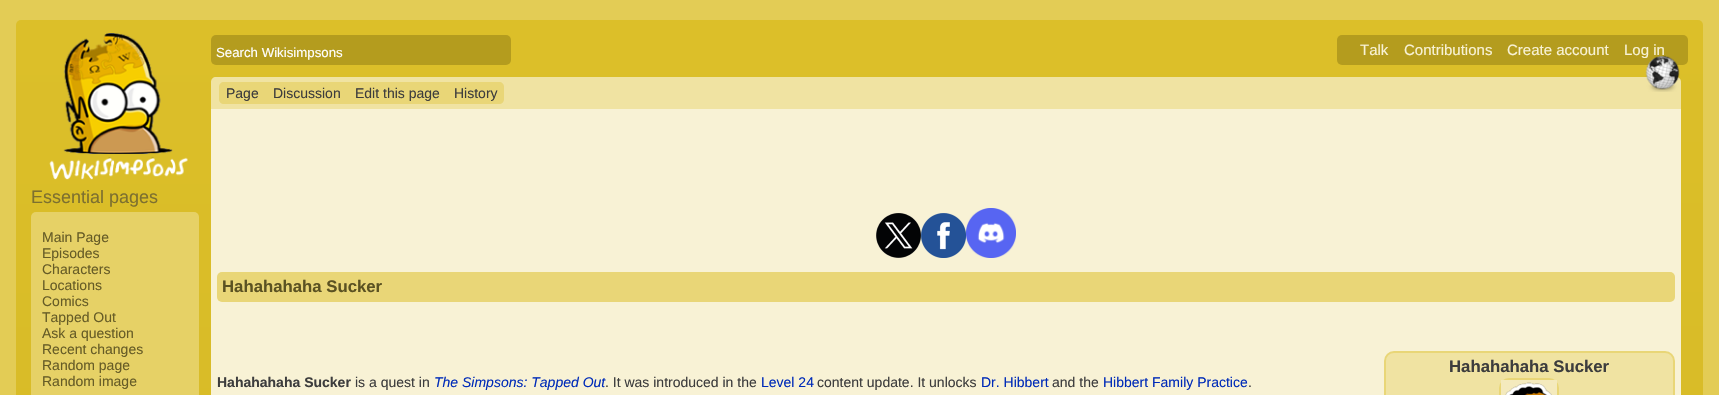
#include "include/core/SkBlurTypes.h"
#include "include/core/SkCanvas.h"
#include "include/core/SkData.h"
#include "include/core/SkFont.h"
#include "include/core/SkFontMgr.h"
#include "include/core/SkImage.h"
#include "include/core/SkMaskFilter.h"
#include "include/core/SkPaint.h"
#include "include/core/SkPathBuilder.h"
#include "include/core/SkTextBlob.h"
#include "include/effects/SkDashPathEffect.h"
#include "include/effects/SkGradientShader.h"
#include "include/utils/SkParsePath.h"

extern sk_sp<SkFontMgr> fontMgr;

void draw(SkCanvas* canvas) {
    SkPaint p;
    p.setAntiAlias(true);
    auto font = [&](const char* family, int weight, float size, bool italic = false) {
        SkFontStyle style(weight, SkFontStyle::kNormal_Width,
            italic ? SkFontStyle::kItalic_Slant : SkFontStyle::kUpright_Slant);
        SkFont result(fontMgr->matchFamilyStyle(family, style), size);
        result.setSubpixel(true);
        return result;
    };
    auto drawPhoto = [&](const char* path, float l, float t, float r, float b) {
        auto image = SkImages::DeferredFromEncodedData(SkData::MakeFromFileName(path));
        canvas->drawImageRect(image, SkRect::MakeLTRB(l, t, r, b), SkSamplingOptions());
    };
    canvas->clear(0xFFE3CC55);
    {
        const SkColor colors[] = {0xFFDCBF29, 0xFFCAAF21};
        const float stops[] = {0, 1};
        const SkPoint ends[] = {{859, 20}, {860, 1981}};
        p.setShader(SkGradientShader::MakeLinear(ends, colors, stops, 2, SkTileMode::kClamp));
        p.setAlpha(255);
    }
    canvas->drawRoundRect(SkRect::MakeLTRB(16, 20, 1703, 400), 5, 5, p);
    p.setShader(nullptr);
    p.setColor(0xFFB49C1E);
    canvas->drawRoundRect(SkRect::MakeLTRB(211, 35, 511, 65), 5, 5, p);
    auto font1 = font("Liberation Sans", 400, 13.25f);
    p.setColor(0xFFFFFFFF);
    canvas->drawString("Search Wikisimpsons", 216, 57, font1, p);
    p.setColor(0xFFB49C1E);
    canvas->drawRoundRect(SkRect::MakeLTRB(1337, 35, 1688, 65), 5, 5, p);
    auto font2 = font("Liberation Sans", 400, 15);
    p.setColor(0xFFF8F2D5);
    {
        const struct { const char* s; float x, y; } items[] = {
            {"Talk", 1360, 55},
            {"Contributions", 1404, 55},
            {"Create account", 1507, 55},
            {"Log in", 1624, 55},
        };
        for (auto [s, x, y] : items) {
            canvas->drawString(s, x, y, font2, p);
        }
    }
    drawPhoto("media/1.png", 49, 33, 188, 180);
    auto font3 = font("Liberation Sans", 400, 18);
    p.setColor(0xFF7D702F);
    canvas->drawString("Essential pages", 31, 203, font3, p);
    p.setColor(0xFFE6D166);
    canvas->drawRoundRect(SkRect::MakeLTRB(31, 212, 199, 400), 5, 5, p);
    auto font4 = font("Liberation Sans", 400, 14);
    p.setColor(0xFF665C26);
    {
        const struct { const char* s; float x, y; } items[] = {
            {"Main Page", 42, 242},
            {"Episodes", 42, 258},
            {"Characters", 42, 274},
            {"Locations", 42, 290},
            {"Comics", 42, 306},
            {"Tapped Out", 42, 322},
            {"Ask a question", 42, 338},
            {"Recent changes", 42, 354},
            {"Random page", 42, 370},
            {"Random image", 42, 386},
        };
        for (auto [s, x, y] : items) {
            canvas->drawString(s, x, y, font4, p);
        }
    }
    p.setColor(0xFFF0E3A2);
    canvas->drawPath(SkPathBuilder().moveTo(216, 77).lineTo(1676, 77).cubicTo(1679, 77, 1681, 79, 1681, 82).lineTo(1681, 109).lineTo(211, 109).lineTo(211, 82).cubicTo(211, 79, 213, 77, 216, 77).close().detach(), p);
    p.setColor(0xFFE9D677);
    canvas->drawPath(SkPathBuilder().moveTo(224, 82).lineTo(266, 82).lineTo(266, 104).lineTo(224, 104).cubicTo(221, 104, 219, 102, 219, 99).lineTo(219, 87).cubicTo(219, 84, 221, 82, 224, 82).close().detach(), p);
    p.setColor(0xFF3D3D3D);
    canvas->drawString("Page", 226, 98, font4, p);
    p.setColor(0xFFE9D677);
    canvas->drawRect(SkRect::MakeLTRB(266, 82, 447, 104), p);
    p.setColor(0xFF3D3D3D);
    canvas->drawString("Discussion", 273, 98, font4, p);
    canvas->drawString("Edit this page", 355, 98, font4, p);
    p.setColor(0xFFE9D677);
    canvas->drawPath(SkPathBuilder().moveTo(447, 82).lineTo(499, 82).cubicTo(502, 82, 504, 84, 504, 87).lineTo(504, 99).cubicTo(504, 102, 502, 104, 499, 104).lineTo(447, 104).close().detach(), p);
    p.setColor(0xFF3D3D3D);
    canvas->drawString("History", 454, 98, font4, p);
    p.setColor(0xFFF8F2D5);
    canvas->drawRect(SkRect::MakeLTRB(211, 109, 1681, 395), p);
    drawPhoto("media/2.png", 876, 213, 921, 258);
    drawPhoto("media/3.png", 921, 213, 966, 258);
    drawPhoto("media/4.png", 966, 208, 1016, 258);
    p.setColor(0xFFE9D677);
    canvas->drawRoundRect(SkRect::MakeLTRB(217, 272, 1675, 302), 5, 5, p);
    auto font5 = font("Liberation Sans", 700, 16.75f);
    p.setColor(0xFF5B5222);
    canvas->drawString("Hahahahaha Sucker", 222, 292, font5, p);
    drawPhoto("media/5.png", 1645, 55, 1680, 92);
    p.setColor(0xFFF0E3A2);
    canvas->drawRoundRect(SkRect::MakeLTRB(1385, 352, 1674, 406), 9, 9, p);
    p.setStyle(SkPaint::kStroke_Style);
    p.setStrokeWidth(2);
    p.setColor(0xFFE9D677);
    canvas->drawRoundRect(SkRect::MakeLTRB(1385, 352, 1674, 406), 9, 9, p);
    p.setStyle(SkPaint::kFill_Style);
    p.setColor(0xFF3D3D3D);
    canvas->drawString("Hahahahaha Sucker", 1449, 372, font5, p);
    p.setColor(0xFFE9D677);
    canvas->drawRoundRect(SkRect::MakeLTRB(1499, 378, 1559, 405), 10, 10, p);
    p.setColor(0xFFF4EABD);
    canvas->drawRect(SkRect::MakeLTRB(1501, 380, 1557, 395), p);
    drawPhoto("media/6.png", 1505, 382, 1552, 395);
    auto font6 = font("Liberation Sans", 700, 14);
    p.setColor(0xFF3D3D3D);
    canvas->drawString("Hahahahaha Sucker", 217, 387, font6, p);
    canvas->drawString("is a quest in", 355, 387, font4, p);
    auto font7 = font("Liberation Sans", 400, 14, true);
    p.setColor(0xFF002BB8);
    canvas->drawString("The Simpsons: Tapped Out", 434, 387, font7, p);
    p.setColor(0xFF3D3D3D);
    canvas->drawString(". It was introduced in the", 605, 387, font4, p);
    p.setColor(0xFF002BB8);
    canvas->drawString("Level 24", 761, 387, font4, p);
    p.setColor(0xFF3D3D3D);
    canvas->drawString("content update. It unlocks", 817, 387, font4, p);
    p.setColor(0xFF002BB8);
    canvas->drawString("Dr. Hibbert", 981, 387, font4, p);
    p.setColor(0xFF3D3D3D);
    canvas->drawString("and the", 1052, 387, font4, p);
    p.setColor(0xFF002BB8);
    canvas->drawString("Hibbert Family Practice", 1103, 387, font4, p);
    p.setColor(0xFF3D3D3D);
    canvas->drawString(".", 1248, 387, font4, p);
}
